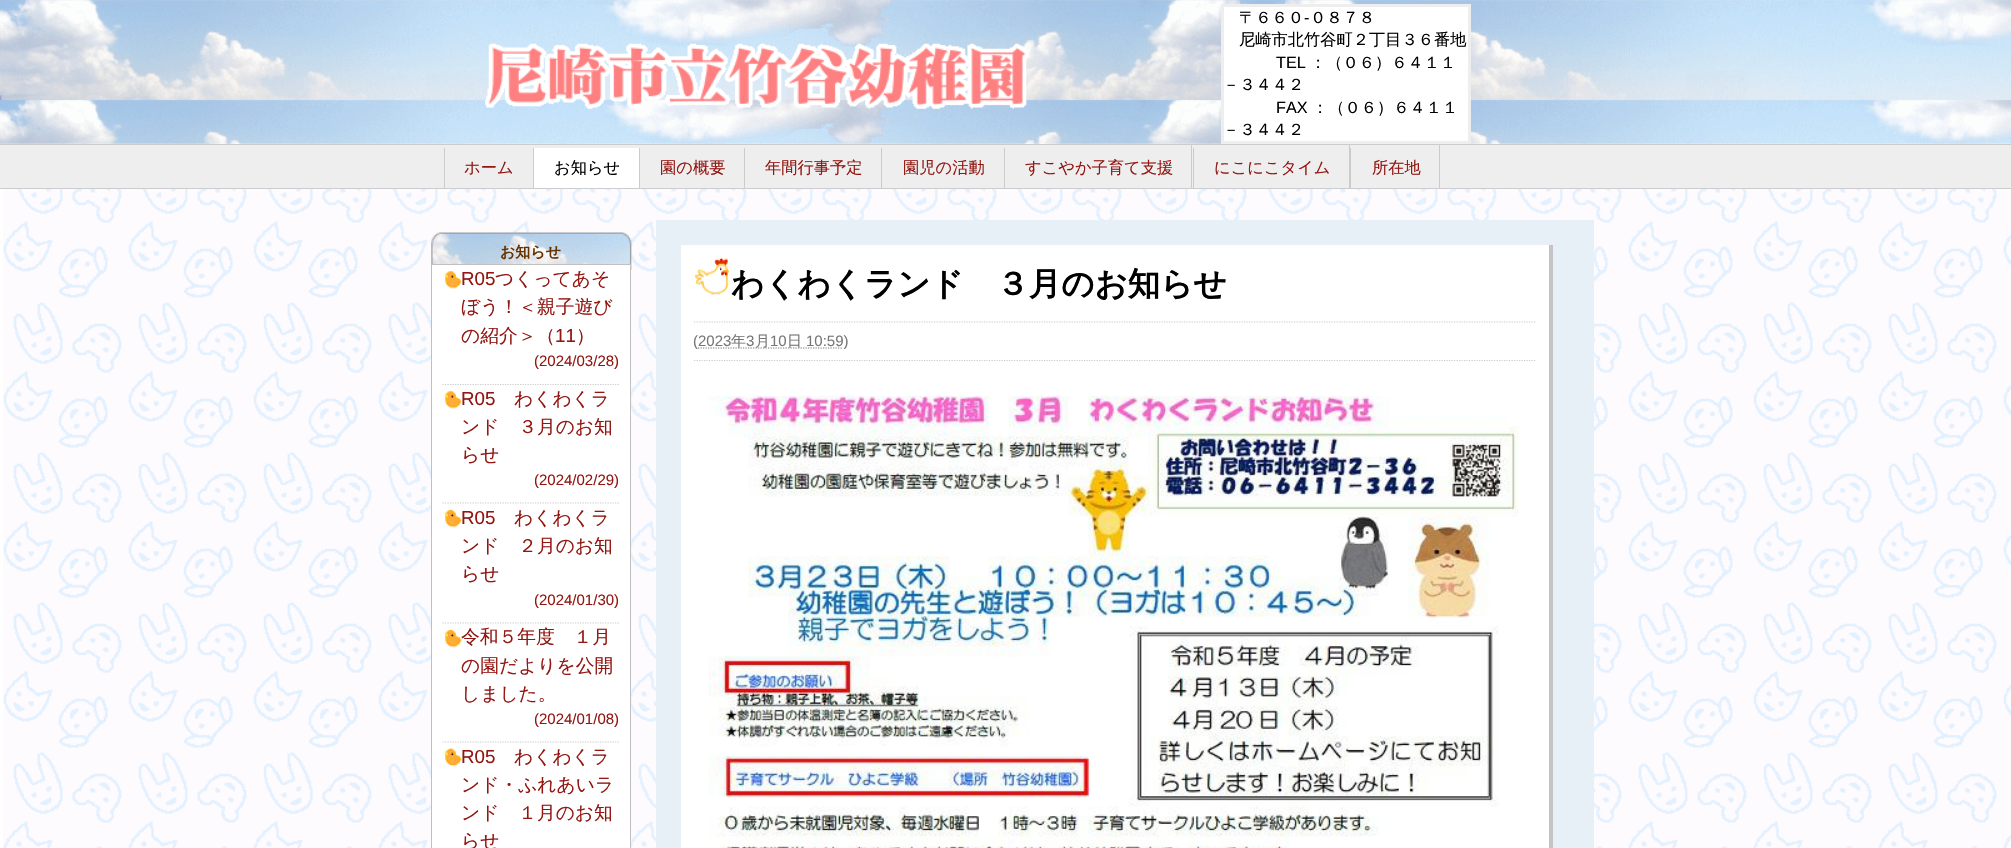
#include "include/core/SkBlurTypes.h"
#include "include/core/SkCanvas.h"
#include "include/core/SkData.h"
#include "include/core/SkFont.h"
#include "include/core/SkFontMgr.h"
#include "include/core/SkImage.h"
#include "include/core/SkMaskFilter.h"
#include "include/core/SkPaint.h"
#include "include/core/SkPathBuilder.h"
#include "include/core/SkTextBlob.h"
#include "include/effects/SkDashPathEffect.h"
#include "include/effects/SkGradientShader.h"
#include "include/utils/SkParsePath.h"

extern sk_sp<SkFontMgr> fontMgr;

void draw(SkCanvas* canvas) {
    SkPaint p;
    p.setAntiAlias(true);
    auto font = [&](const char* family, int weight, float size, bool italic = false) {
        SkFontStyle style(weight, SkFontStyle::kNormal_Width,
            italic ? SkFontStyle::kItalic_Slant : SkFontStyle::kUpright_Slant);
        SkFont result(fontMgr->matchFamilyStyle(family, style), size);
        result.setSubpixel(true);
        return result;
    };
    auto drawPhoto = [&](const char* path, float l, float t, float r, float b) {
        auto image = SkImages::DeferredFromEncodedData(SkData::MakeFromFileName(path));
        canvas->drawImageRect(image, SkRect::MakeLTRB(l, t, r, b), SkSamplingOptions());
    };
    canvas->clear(0xFFFFFFFF);
    drawPhoto("media/1.png", 3, 143, 2011, 848);
    drawPhoto("media/2.png", 0, 0, 2011, 144);
    drawPhoto("media/3.png", 485, 43, 1029, 109);
    p.setColor(0xFFFFFFFF);
    canvas->drawRect(SkRect::MakeLTRB(1222.5f, 5.5f, 1469.5f, 142.5f), p);
    p.setStyle(SkPaint::kStroke_Style);
    p.setStrokeWidth(3);
    p.setColor(0xFFEEEEEE);
    canvas->drawRect(SkRect::MakeLTRB(1222.5f, 5.5f, 1469.5f, 142.5f), p);
    auto font1 = font("WenQuanYi Zen Hei", 500, 16.25f);
    p.setStyle(SkPaint::kFill_Style);
    p.setColor(0xFF000000);
    canvas->drawString("〒６６０", 1239, 23, font1, p);
    auto font2 = font("Liberation Sans", 400, 16.25f);
    canvas->drawString("-", 1304, 23, font2, p);
    canvas->drawString("０８７８", 1310, 23, font1, p);
    canvas->drawString("尼崎市北竹谷町２丁目３６番地", 1239, 45, font1, p);
    canvas->drawString("TEL", 1276, 68, font2, p);
    canvas->drawString("：（０６）６４１１", 1310, 68, font1, p);
    canvas->drawString("－３４４２", 1223, 90, font1, p);
    canvas->drawString("FAX", 1276, 113, font2, p);
    canvas->drawString("：（０６）６４１１", 1312, 113, font1, p);
    canvas->drawString("－３４４２", 1223, 135, font1, p);
    {
        const struct { float l, t, r, b; SkColor color; } items[] = {
            {0, 145, 2011, 188, 0xFFEEEEEE},
            {0, 144, 2011, 145, 0xFFCCCCCC},
            {0, 188, 2011, 189, 0xFFCCCCCC},
            {444, 148, 445, 188, 0xFFCCCCCC},
        };
        for (auto [l, t, r, b, color] : items) {
            p.setColor(color);
            canvas->drawRect(SkRect::MakeLTRB(l, t, r, b), p);
        }
    }
    p.setColor(0xFF921712);
    canvas->drawString("ホーム", 464, 173, font1, p);
    p.setColor(0xFFFFFFFF);
    canvas->drawRect(SkRect::MakeLTRB(534, 148, 639, 188), p);
    p.setColor(0xFFCCCCCC);
    canvas->drawRect(SkRect::MakeLTRB(533, 148, 534, 188), p);
    p.setColor(0xFF000000);
    canvas->drawString("お知らせ", 554, 173, font1, p);
    p.setColor(0xFFCCCCCC);
    canvas->drawRect(SkRect::MakeLTRB(639, 148, 640, 188), p);
    p.setColor(0xFF921712);
    canvas->drawString("園の概要", 660, 173, font1, p);
    p.setColor(0xFFCCCCCC);
    canvas->drawRect(SkRect::MakeLTRB(744, 148, 745, 188), p);
    p.setColor(0xFF921712);
    canvas->drawString("年間行事予定", 765, 173, font1, p);
    p.setColor(0xFFCCCCCC);
    canvas->drawRect(SkRect::MakeLTRB(881, 148, 882, 188), p);
    p.setColor(0xFF921712);
    canvas->drawString("園児の活動", 903, 173, font1, p);
    p.setColor(0xFFCCCCCC);
    canvas->drawRect(SkRect::MakeLTRB(1191, 145, 1192, 188), p);
    canvas->drawRect(SkRect::MakeLTRB(1004, 148, 1005, 188), p);
    p.setColor(0xFF921712);
    canvas->drawString("すこやか子育て支援", 1025, 173, font1, p);
    p.setColor(0xFFCCCCCC);
    canvas->drawRect(SkRect::MakeLTRB(1349, 145, 1350, 188), p);
    canvas->drawRect(SkRect::MakeLTRB(1193, 148, 1194, 188), p);
    p.setColor(0xFF921712);
    canvas->drawString("にこにこタイム", 1214, 173, font1, p);
    p.setColor(0xFFCCCCCC);
    canvas->drawRect(SkRect::MakeLTRB(1439, 145, 1440, 188), p);
    canvas->drawRect(SkRect::MakeLTRB(1350, 148, 1351, 188), p);
    p.setColor(0xFF921712);
    canvas->drawString("所在地", 1372, 173, font1, p);
    drawPhoto("media/4.png", 431, 232, 632, 270);
    auto font3 = font("WenQuanYi Zen Hei", 700, 15);
    p.setColor(0xFF663300);
    canvas->drawString("お知らせ", 500, 257, font3, p);
    p.setColor(0xFFFFFFFF);
    canvas->drawRect(SkRect::MakeLTRB(431.5f, 264.5f, 630.5f, 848.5f), p);
    p.setStyle(SkPaint::kStroke_Style);
    p.setStrokeWidth(1);
    p.setColor(0xFFC0C0C0);
    canvas->drawRect(SkRect::MakeLTRB(431.5f, 264.5f, 630.5f, 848.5f), p);
    drawPhoto("media/5.png", 443, 270, 462, 289);
    p.setStrokeWidth(1.2f);
    p.setColor(0xFFCCCCCC);
    p.setPathEffect(SkDashPathEffect::Make({{1.25f, 1.25f}}, 0));
    canvas->drawPath(SkPathBuilder().moveTo(442.5f, 384.5f).lineTo(620, 384.5f).detach(), p);
    p.setPathEffect(nullptr);
    auto font4 = font("Liberation Sans", 400, 18.75f);
    p.setStyle(SkPaint::kFill_Style);
    p.setColor(0xFF921712);
    canvas->drawString("R05", 461, 285, font4, p);
    auto font5 = font("WenQuanYi Zen Hei", 500, 18.75f);
    {
        const struct { const char* s; float x, y; } items[] = {
            {"つくってあそ", 495, 285},
            {"ぼう！＜親子遊び", 461, 313},
            {"の紹介＞（", 461, 342},
        };
        for (auto [s, x, y] : items) {
            canvas->drawString(s, x, y, font5, p);
        }
    }
    canvas->drawString("11", 555, 342, font4, p);
    canvas->drawString("）", 576, 342, font5, p);
    auto font6 = font("Liberation Sans", 400, 15);
    canvas->drawString("(2024/03/28)", 534, 366, font6, p);
    drawPhoto("media/5.png", 443, 390, 462, 409);
    p.setStyle(SkPaint::kStroke_Style);
    p.setColor(0xFFCCCCCC);
    p.setPathEffect(SkDashPathEffect::Make({{1.25f, 1.25f}}, 0));
    canvas->drawPath(SkPathBuilder().moveTo(442.5f, 503).lineTo(620, 503).detach(), p);
    p.setPathEffect(nullptr);
    p.setStyle(SkPaint::kFill_Style);
    p.setColor(0xFF921712);
    canvas->drawString("R05", 461, 405, font4, p);
    {
        const struct { const char* s; float x, y; } items[] = {
            {"わくわくラ", 514, 405},
            {"ンド　３月のお知", 461, 433},
            {"らせ", 461, 461},
        };
        for (auto [s, x, y] : items) {
            canvas->drawString(s, x, y, font5, p);
        }
    }
    canvas->drawString("(2024/02/29)", 534, 485, font6, p);
    drawPhoto("media/6.png", 443, 509, 462, 528);
    p.setStyle(SkPaint::kStroke_Style);
    p.setColor(0xFFCCCCCC);
    p.setPathEffect(SkDashPathEffect::Make({{1.25f, 1.25f}}, 0));
    canvas->drawPath(SkPathBuilder().moveTo(442.5f, 623).lineTo(620, 623).detach(), p);
    p.setPathEffect(nullptr);
    p.setStyle(SkPaint::kFill_Style);
    p.setColor(0xFF921712);
    canvas->drawString("R05", 461, 524, font4, p);
    {
        const struct { const char* s; float x, y; } items[] = {
            {"わくわくラ", 514, 524},
            {"ンド　２月のお知", 461, 552},
            {"らせ", 461, 580},
        };
        for (auto [s, x, y] : items) {
            canvas->drawString(s, x, y, font5, p);
        }
    }
    canvas->drawString("(2024/01/30)", 534, 605, font6, p);
    drawPhoto("media/6.png", 443, 629, 462, 648);
    p.setStyle(SkPaint::kStroke_Style);
    p.setColor(0xFFCCCCCC);
    p.setPathEffect(SkDashPathEffect::Make({{1.25f, 1.25f}}, 0));
    canvas->drawPath(SkPathBuilder().moveTo(442.5f, 742).lineTo(620, 742).detach(), p);
    p.setPathEffect(nullptr);
    p.setStyle(SkPaint::kFill_Style);
    p.setColor(0xFF921712);
    {
        const struct { const char* s; float x, y; } items[] = {
            {"令和５年度　１月", 461, 643},
            {"の園だよりを公開", 461, 672},
            {"しました。", 461, 700},
        };
        for (auto [s, x, y] : items) {
            canvas->drawString(s, x, y, font5, p);
        }
    }
    canvas->drawString("(2024/01/08)", 534, 724, font6, p);
    drawPhoto("media/7.png", 443, 747, 462, 767);
    canvas->drawString("R05", 461, 763, font4, p);
    {
        const struct { const char* s; float x, y; } items[] = {
            {"わくわくラ", 514, 763},
            {"ンド・ふれあいラ", 461, 791},
            {"ンド　１月のお知", 461, 819},
            {"らせ", 461, 847},
        };
        for (auto [s, x, y] : items) {
            canvas->drawString(s, x, y, font5, p);
        }
    }
    {
        const struct { float l, t, r, b; SkColor color; } items[] = {
            {656, 220, 1594, 848, 0xFFE7EFF7},
            {681, 245, 1549, 848, 0xFFFFFFFF},
            {1549, 245, 1553, 848, 0xFFC6C3C6},
        };
        for (auto [l, t, r, b, color] : items) {
            p.setColor(color);
            canvas->drawRect(SkRect::MakeLTRB(l, t, r, b), p);
        }
    }
    drawPhoto("media/8.png", 694, 257, 729, 295);
    auto font7 = font("WenQuanYi Zen Hei", 700, 32.5f);
    p.setColor(0xFF000000);
    canvas->drawString("わくわくランド　３月のお知らせ", 731, 295, font7, p);
    p.setStyle(SkPaint::kStroke_Style);
    p.setColor(0xFFCCCCCC);
    p.setPathEffect(SkDashPathEffect::Make({{1.25f, 1.25f}}, 0));
    canvas->drawPath(SkPathBuilder().moveTo(694, 322).lineTo(1536, 322).detach(), p);
    p.setPathEffect(nullptr);
    p.setPathEffect(SkDashPathEffect::Make({{1.25f, 1.25f}}, 0));
    canvas->drawPath(SkPathBuilder().moveTo(694, 360.5f).lineTo(1536, 360.5f).detach(), p);
    p.setPathEffect(nullptr);
    p.setStyle(SkPaint::kFill_Style);
    p.setColor(0xFF777777);
    canvas->drawString("(2023", 693, 346, font6, p);
    p.setStyle(SkPaint::kStroke_Style);
    p.setPathEffect(SkDashPathEffect::Make({{1.25f, 1.25f}}, 0));
    canvas->drawPath(SkPathBuilder().moveTo(698, 348).lineTo(843, 348).detach(), p);
    p.setPathEffect(nullptr);
    auto font8 = font("WenQuanYi Zen Hei", 500, 15);
    p.setStyle(SkPaint::kFill_Style);
    canvas->drawString("年", 731, 346, font8, p);
    canvas->drawString("3", 746, 346, font6, p);
    canvas->drawString("月", 755, 346, font8, p);
    canvas->drawString("10", 770, 346, font6, p);
    canvas->drawString("日", 787, 346, font8, p);
    canvas->drawString("10:59)", 806, 346, font6, p);
    drawPhoto("media/9.png", 708, 395, 1521, 848);
}
